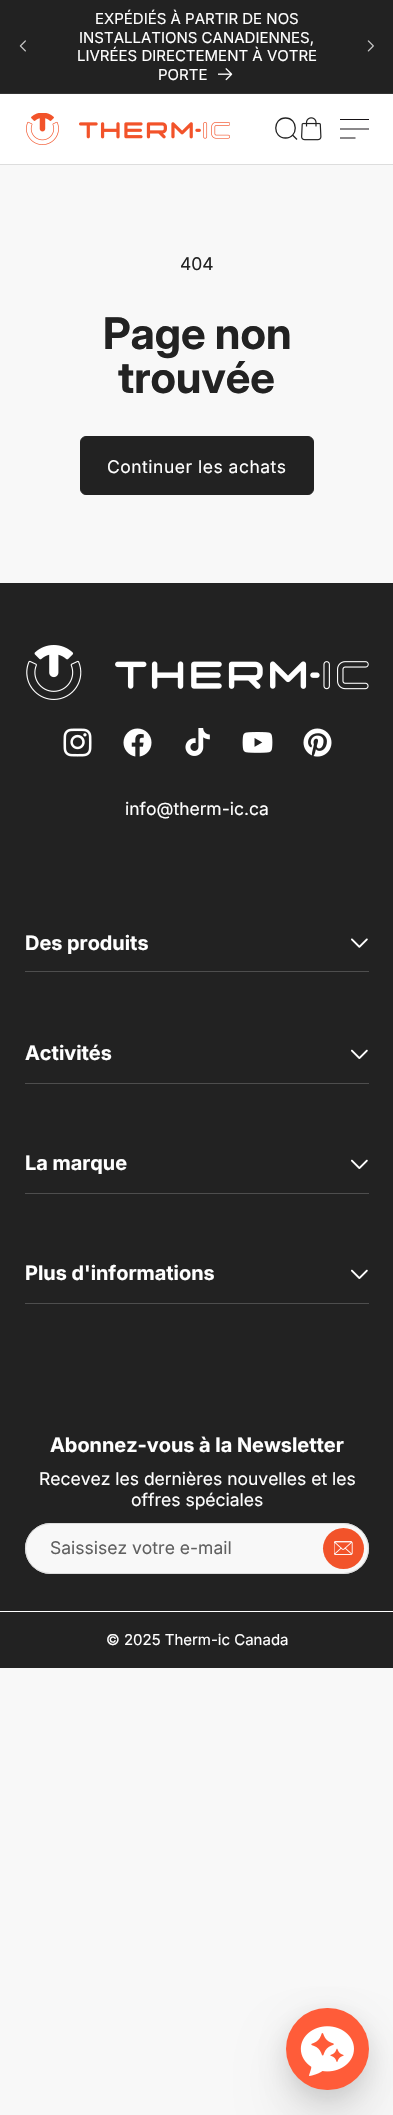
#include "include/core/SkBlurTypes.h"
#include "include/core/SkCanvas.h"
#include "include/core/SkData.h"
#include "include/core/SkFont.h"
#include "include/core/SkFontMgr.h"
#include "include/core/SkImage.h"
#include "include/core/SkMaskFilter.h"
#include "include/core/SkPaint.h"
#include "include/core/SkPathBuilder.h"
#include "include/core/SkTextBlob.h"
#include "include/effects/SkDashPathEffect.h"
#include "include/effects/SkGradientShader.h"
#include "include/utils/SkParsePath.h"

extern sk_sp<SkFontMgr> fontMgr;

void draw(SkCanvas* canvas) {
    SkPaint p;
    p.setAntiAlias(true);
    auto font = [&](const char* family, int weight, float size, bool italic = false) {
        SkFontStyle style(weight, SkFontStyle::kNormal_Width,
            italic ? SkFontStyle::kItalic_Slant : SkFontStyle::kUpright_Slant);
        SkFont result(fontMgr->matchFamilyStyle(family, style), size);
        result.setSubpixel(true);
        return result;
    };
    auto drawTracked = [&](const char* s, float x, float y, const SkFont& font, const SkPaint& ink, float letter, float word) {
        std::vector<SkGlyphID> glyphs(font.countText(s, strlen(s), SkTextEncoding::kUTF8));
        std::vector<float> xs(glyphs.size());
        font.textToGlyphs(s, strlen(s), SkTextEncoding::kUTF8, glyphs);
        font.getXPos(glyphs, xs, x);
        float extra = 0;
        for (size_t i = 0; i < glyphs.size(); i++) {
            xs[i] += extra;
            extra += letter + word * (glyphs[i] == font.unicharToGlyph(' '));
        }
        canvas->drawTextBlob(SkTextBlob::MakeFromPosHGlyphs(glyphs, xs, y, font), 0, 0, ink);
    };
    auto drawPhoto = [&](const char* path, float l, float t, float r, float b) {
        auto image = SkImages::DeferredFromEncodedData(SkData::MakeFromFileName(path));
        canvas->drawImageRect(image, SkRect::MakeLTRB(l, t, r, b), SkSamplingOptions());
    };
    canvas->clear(0xFFF8F8F8);
    p.setColor(0xFF222222);
    canvas->drawRect(SkRect::MakeLTRB(0, 0, 393, 93), p);
    p.setColor(0xFF343434);
    canvas->drawRect(SkRect::MakeLTRB(0, 93, 393, 94), p);
    drawPhoto("media/1.png", 19, 40, 26, 52);
    auto font1 = font("Inter", 400, 15);
    p.setColor(0xFFFFFFFF);
    {
        const struct { const char* s; float x, y; } items[] = {
            {"EXPÉDIÉS À PARTIR DE NOS", 95, 24},
            {"INSTALLATIONS CANADIENNES,", 79, 43},
            {"LIVRÉES DIRECTEMENT À VOTRE", 77, 61},
            {"PORTE", 158, 80},
        };
        for (auto [s, x, y] : items) {
            canvas->drawString(s, x, y, font1, p);
        }
    }
    drawPhoto("media/2.png", 218, 68, 233, 81);
    drawPhoto("media/3.png", 367, 40, 374, 52);
    canvas->drawRect(SkRect::MakeLTRB(0, 94, 393, 164), p);
    p.setColor(0xFFDDDDDD);
    canvas->drawRect(SkRect::MakeLTRB(0, 164, 393, 165), p);
    drawPhoto("media/4.png", 26, 113, 230, 145);
    p.setStyle(SkPaint::kStroke_Style);
    p.setStrokeWidth(1.3f);
    p.setColor(0xFF222222);
    canvas->drawPath(SkPathBuilder().moveTo(285.5f, 138).cubicTo(298.5f, 138, 298.5f, 118, 285.5f, 118).cubicTo(272.5f, 118, 272.5f, 138, 285.5f, 138).close().moveTo(292.5f, 135).lineTo(297, 139.5f).detach(), p);
    drawPhoto("media/5.png", 301, 117, 322, 141);
    p.setStyle(SkPaint::kFill_Style);
    p.setColor(0xFF161215);
    canvas->drawRect(SkRect::MakeLTRB(340, 119, 369, 120), p);
    p.setStyle(SkPaint::kStroke_Style);
    p.setStrokeWidth(1.2f);
    canvas->drawPath(SkPathBuilder().moveTo(340, 129).lineTo(369, 129).moveTo(340, 138).lineTo(355.5f, 138).detach(), p);
    auto font2 = font("Inter", 400, 17.5f);
    p.setStyle(SkPaint::kFill_Style);
    p.setColor(0xFF222222);
    canvas->drawString("404", 180, 270, font2, p);
    auto font3 = font("Inter", 700, 43.75f);
    canvas->drawString("Page non", 103, 349, font3, p);
    canvas->drawString("trouvée", 118, 393, font3, p);
    canvas->drawRoundRect(SkRect::MakeLTRB(80.5f, 436.5f, 313.5f, 494.5f), 5.5f, 5.5f, p);
    p.setStyle(SkPaint::kStroke_Style);
    p.setStrokeWidth(1);
    canvas->drawRoundRect(SkRect::MakeLTRB(80.5f, 436.5f, 313.5f, 494.5f), 5.5f, 5.5f, p);
    p.setStyle(SkPaint::kFill_Style);
    p.setColor(0xFFFFFFFF);
    drawTracked("Continuer les achats", 107, 473, font2, p, 0.5f, 0);
    p.setColor(0xFF222222);
    canvas->drawRect(SkRect::MakeLTRB(0, 583, 393, 1668), p);
    drawPhoto("media/6.png", 26, 645, 369, 700);
    drawPhoto("media/7.png", 63, 728, 92, 757);
    drawPhoto("media/8.png", 123, 728, 152, 757);
    drawPhoto("media/9.png", 185, 728, 210, 756);
    drawPhoto("media/10.png", 242, 732, 273, 753);
    drawPhoto("media/11.png", 303, 728, 332, 757);
    p.setColor(0xFFFFFFFF);
    canvas->drawString("info@therm-ic.ca", 125, 815, font2, p);
    p.setColor(0xFF4E4E4E);
    canvas->drawRect(SkRect::MakeLTRB(25, 971, 369, 972), p);
    auto font4 = font("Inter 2", 700, 20);
    p.setColor(0xFFFFFFFF);
    canvas->drawString("Des produits", 25, 950, font4, p);
    drawPhoto("media/12.png", 351, 938, 368, 948);
    p.setColor(0xFF4E4E4E);
    canvas->drawRect(SkRect::MakeLTRB(25, 1083, 369, 1084), p);
    p.setColor(0xFFFFFFFF);
    canvas->drawString("Activités", 25, 1060, font4, p);
    drawPhoto("media/13.png", 351, 1049, 368, 1059);
    p.setColor(0xFF4E4E4E);
    canvas->drawRect(SkRect::MakeLTRB(25, 1193, 369, 1194), p);
    p.setColor(0xFFFFFFFF);
    canvas->drawString("La marque", 25, 1170, font4, p);
    drawPhoto("media/13.png", 351, 1159, 368, 1169);
    p.setColor(0xFF4E4E4E);
    canvas->drawRect(SkRect::MakeLTRB(25, 1303, 369, 1304), p);
    p.setColor(0xFFFFFFFF);
    canvas->drawString("Plus d'informations", 25, 1280, font4, p);
    drawPhoto("media/13.png", 351, 1269, 368, 1279);
    canvas->drawString("Abonnez-vous à la Newsletter", 50, 1452, font4, p);
    canvas->drawString("Recevez les dernières nouvelles et les", 39, 1485, font2, p);
    canvas->drawString("offres spéciales", 131, 1506, font2, p);
    p.setColor(0xFFF8F8F8);
    canvas->drawRoundRect(SkRect::MakeLTRB(25, 1523, 369, 1574), 25.5f, 25.5f, p);
    p.setStyle(SkPaint::kStroke_Style);
    p.setColor(0x1A222222);
    canvas->drawRoundRect(SkRect::MakeLTRB(25.5f, 1523.5f, 368.5f, 1573.5f), 25, 25, p);
    p.setStyle(SkPaint::kFill_Style);
    p.setColor(0xFFF2532A);
    canvas->drawCircle(343.5f, 1548.5f, 20.5f, p);
    drawPhoto("media/14.png", 334, 1541, 353, 1555);
    p.setStyle(SkPaint::kStroke_Style);
    p.setColor(0xFFDDDDDD);
    canvas->drawRoundRect(SkRect::MakeLTRB(25.5f, 1523.5f, 368.5f, 1573.5f), 25, 25, p);
    p.setStyle(SkPaint::kFill_Style);
    p.setColor(0xFF606060);
    canvas->drawString("Saissisez votre e-mail", 50, 1554, font2, p);
    p.setColor(0xFFFFFFFF);
    canvas->drawRect(SkRect::MakeLTRB(0, 1611, 393, 1612), p);
    canvas->drawString("© 2025 Therm-ic Canada", 106, 1645, font1, p);
    p.setColor(0x40000000);
    p.setMaskFilter(SkMaskFilter::MakeBlur(kNormal_SkBlurStyle, 31));
    canvas->drawRoundRect(SkRect::MakeLTRB(301, 2054, 354, 2106), 26, 26, p);
    p.setMaskFilter(nullptr);
    p.setColor(0x1F000000);
    p.setMaskFilter(SkMaskFilter::MakeBlur(kNormal_SkBlurStyle, 12));
    canvas->drawRoundRect(SkRect::MakeLTRB(286, 2015, 369, 2098), 41.5f, 41.5f, p);
    p.setMaskFilter(nullptr);
    p.setColor(0xFFFF5C39);
    canvas->drawRoundRect(SkRect::MakeLTRB(286, 2008, 369, 2090), 41, 41, p);
    drawPhoto("media/15.png", 300, 2026, 354, 2076);
}
